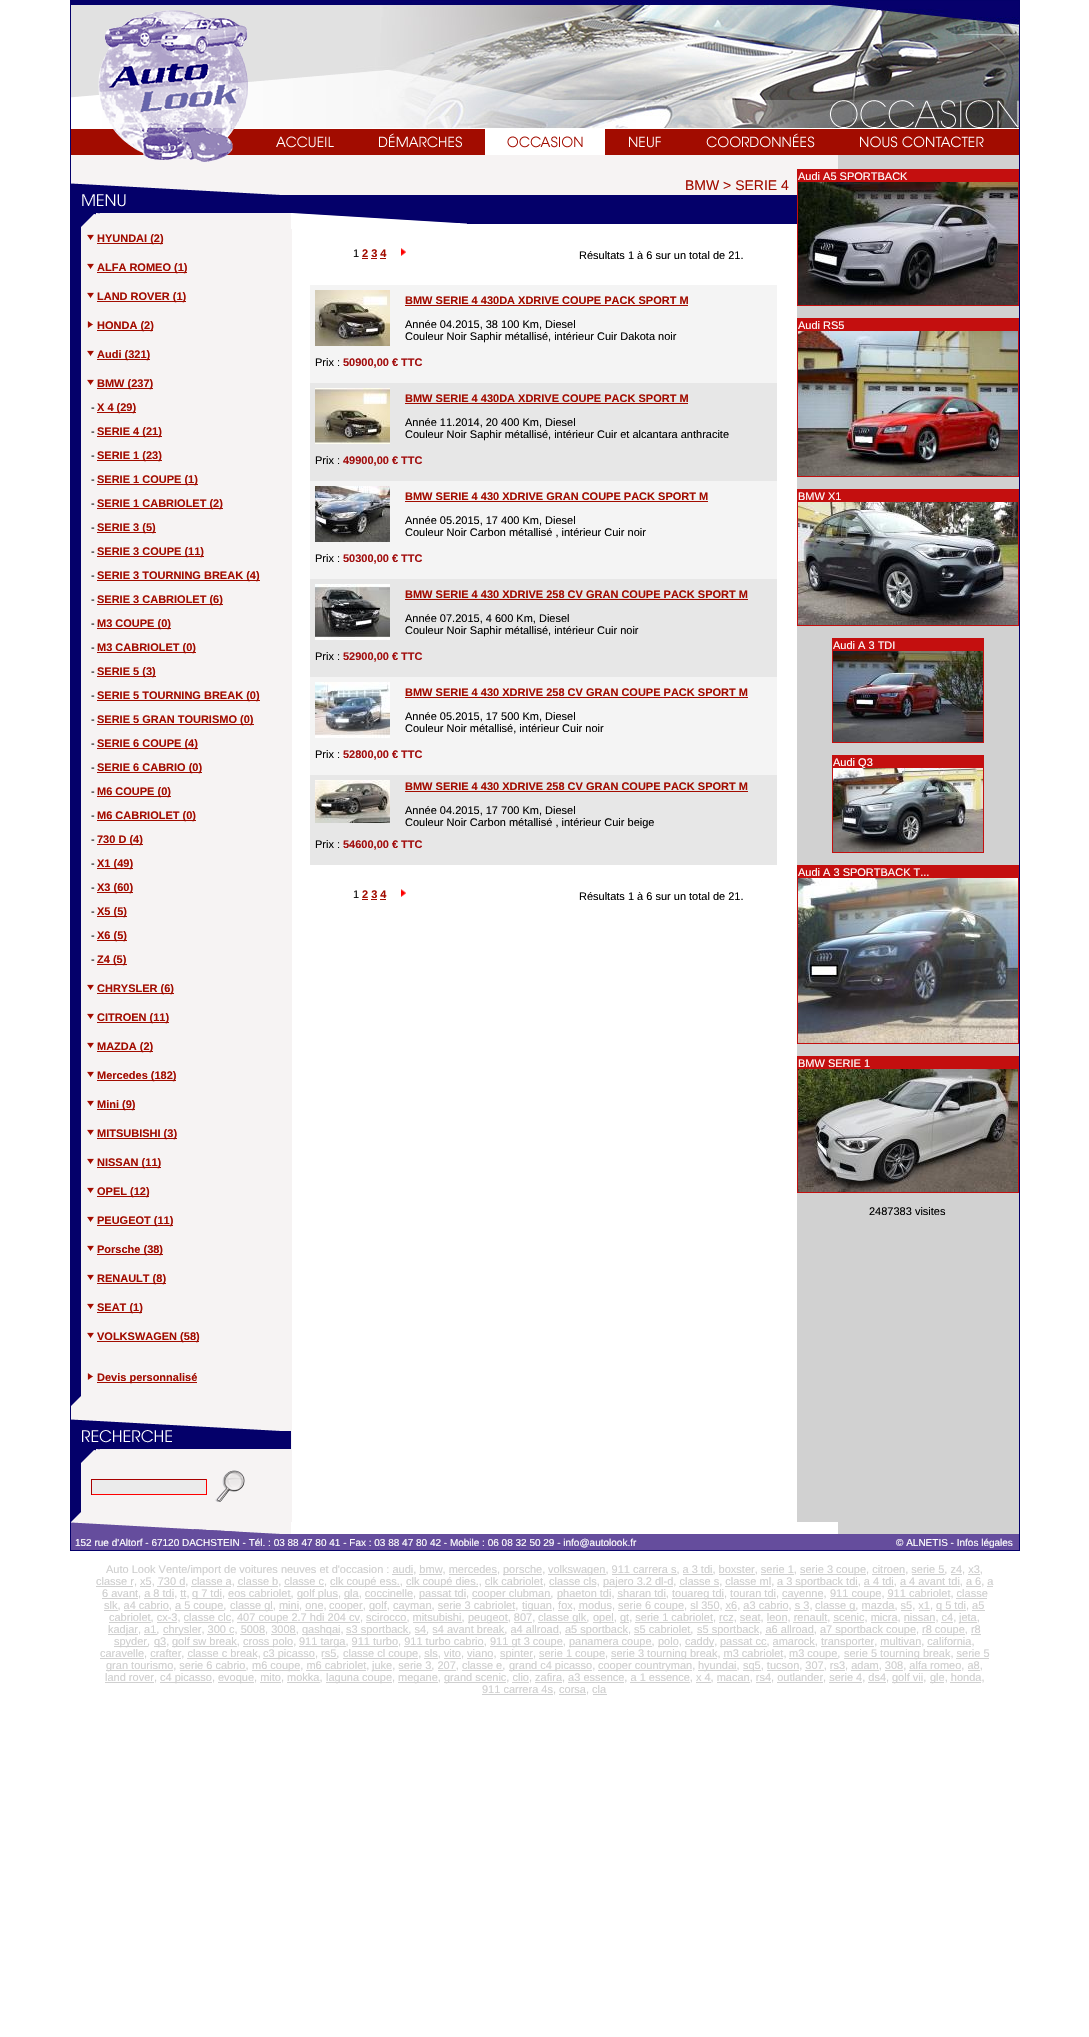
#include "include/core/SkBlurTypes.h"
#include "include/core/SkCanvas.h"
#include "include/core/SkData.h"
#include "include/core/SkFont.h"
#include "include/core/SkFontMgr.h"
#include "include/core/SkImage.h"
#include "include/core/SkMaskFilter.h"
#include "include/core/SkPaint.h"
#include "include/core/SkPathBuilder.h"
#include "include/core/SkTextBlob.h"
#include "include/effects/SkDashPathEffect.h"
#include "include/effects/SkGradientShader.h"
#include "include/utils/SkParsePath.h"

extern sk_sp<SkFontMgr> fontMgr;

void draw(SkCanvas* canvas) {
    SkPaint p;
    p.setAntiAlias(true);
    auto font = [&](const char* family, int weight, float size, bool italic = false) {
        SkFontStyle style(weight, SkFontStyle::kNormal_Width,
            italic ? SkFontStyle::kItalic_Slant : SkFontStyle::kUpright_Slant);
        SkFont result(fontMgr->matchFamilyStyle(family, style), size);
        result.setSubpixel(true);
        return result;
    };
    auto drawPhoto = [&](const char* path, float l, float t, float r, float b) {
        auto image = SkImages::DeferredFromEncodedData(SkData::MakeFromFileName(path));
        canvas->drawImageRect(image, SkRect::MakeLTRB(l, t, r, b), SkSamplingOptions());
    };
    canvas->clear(0xFFFFFFFF);
    {
        const struct { float l, t, r, b; SkColor color; } items[] = {
            {70, 0, 1020, 1, 0xFF04006A},
            {1019, 0, 1020, 1551, 0xFF04006A},
            {70, 1550, 1020, 1551, 0xFF04006A},
            {70, 0, 71, 1551, 0xFF04006A},
        };
        for (auto [l, t, r, b, color] : items) {
            p.setColor(color);
            canvas->drawRect(SkRect::MakeLTRB(l, t, r, b), p);
        }
    }
    drawPhoto("media/1.png", 71, 1, 356, 129);
    drawPhoto("media/2.png", 356, 1, 1019, 100);
    drawPhoto("media/3.png", 356, 100, 1019, 129);
    drawPhoto("media/4.png", 71, 129, 253, 155);
    drawPhoto("media/5.png", 253, 129, 356, 155);
    drawPhoto("media/6.png", 356, 129, 485, 155);
    drawPhoto("media/7.png", 507, 136, 583, 148);
    drawPhoto("media/8.png", 605, 129, 684, 155);
    drawPhoto("media/9.png", 684, 129, 837, 155);
    drawPhoto("media/10.png", 837, 129, 1019, 155);
    drawPhoto("media/11.png", 71, 155, 1019, 169);
    p.setColor(0xFFF6F3F3);
    canvas->drawRect(SkRect::MakeLTRB(71, 169, 292, 1522), p);
    drawPhoto("media/12.png", 71, 183, 291, 227);
    p.setColor(0xFF04006A);
    canvas->drawRect(SkRect::MakeLTRB(71, 227, 81, 1395), p);
    drawPhoto("media/13.png", 87, 234, 94, 241);
    p.setColor(0xFFA20C00);
    canvas->drawRect(SkRect::MakeLTRB(97, 243, 163, 244), p);
    auto font1 = font("Liberation Sans", 700, 11);
    canvas->drawString("HYUNDAI (2)", 97, 242, font1, p);
    drawPhoto("media/13.png", 87, 263, 94, 270);
    canvas->drawRect(SkRect::MakeLTRB(97, 272, 187, 273), p);
    canvas->drawString("ALFA ROMEO (1)", 97, 271, font1, p);
    drawPhoto("media/13.png", 87, 292, 94, 299);
    canvas->drawRect(SkRect::MakeLTRB(97, 301, 186, 302), p);
    canvas->drawString("LAND ROVER (1)", 97, 300, font1, p);
    drawPhoto("media/14.png", 87, 321, 94, 328);
    canvas->drawRect(SkRect::MakeLTRB(97, 330, 153, 331), p);
    canvas->drawString("HONDA (2)", 97, 329, font1, p);
    drawPhoto("media/13.png", 87, 350, 94, 357);
    canvas->drawRect(SkRect::MakeLTRB(97, 359, 150, 360), p);
    canvas->drawString("Audi (321)", 97, 358, font1, p);
    drawPhoto("media/13.png", 87, 379, 94, 386);
    canvas->drawRect(SkRect::MakeLTRB(97, 388, 153, 389), p);
    canvas->drawString("BMW (237)", 97, 387, font1, p);
    auto font2 = font("Liberation Sans", 400, 11);
    p.setColor(0xFF000000);
    canvas->drawString("-", 91, 411, font2, p);
    p.setColor(0xFFA20C00);
    canvas->drawRect(SkRect::MakeLTRB(97, 412, 136, 413), p);
    canvas->drawString("X 4 (29)", 97, 411, font1, p);
    p.setColor(0xFF000000);
    canvas->drawString("-", 91, 435, font2, p);
    p.setColor(0xFFA20C00);
    canvas->drawRect(SkRect::MakeLTRB(97, 436, 162, 437), p);
    canvas->drawString("SERIE 4 (21)", 97, 435, font1, p);
    p.setColor(0xFF000000);
    canvas->drawString("-", 91, 459, font2, p);
    p.setColor(0xFFA20C00);
    canvas->drawRect(SkRect::MakeLTRB(97, 460, 162, 461), p);
    canvas->drawString("SERIE 1 (23)", 97, 459, font1, p);
    p.setColor(0xFF000000);
    canvas->drawString("-", 91, 483, font2, p);
    p.setColor(0xFFA20C00);
    canvas->drawRect(SkRect::MakeLTRB(97, 484, 198, 485), p);
    canvas->drawString("SERIE 1 COUPE (1)", 97, 483, font1, p);
    p.setColor(0xFF000000);
    canvas->drawString("-", 91, 507, font2, p);
    p.setColor(0xFFA20C00);
    canvas->drawRect(SkRect::MakeLTRB(97, 508, 223, 509), p);
    canvas->drawString("SERIE 1 CABRIOLET (2)", 97, 507, font1, p);
    p.setColor(0xFF000000);
    canvas->drawString("-", 91, 531, font2, p);
    p.setColor(0xFFA20C00);
    canvas->drawRect(SkRect::MakeLTRB(97, 532, 156, 533), p);
    canvas->drawString("SERIE 3 (5)", 97, 531, font1, p);
    p.setColor(0xFF000000);
    canvas->drawString("-", 91, 555, font2, p);
    p.setColor(0xFFA20C00);
    canvas->drawRect(SkRect::MakeLTRB(97, 556, 204, 557), p);
    canvas->drawString("SERIE 3 COUPE (11)", 97, 555, font1, p);
    p.setColor(0xFF000000);
    canvas->drawString("-", 91, 579, font2, p);
    p.setColor(0xFFA20C00);
    canvas->drawRect(SkRect::MakeLTRB(97, 580, 260, 581), p);
    canvas->drawString("SERIE 3 TOURNING BREAK (4)", 97, 579, font1, p);
    p.setColor(0xFF000000);
    canvas->drawString("-", 91, 603, font2, p);
    p.setColor(0xFFA20C00);
    canvas->drawRect(SkRect::MakeLTRB(97, 604, 223, 605), p);
    canvas->drawString("SERIE 3 CABRIOLET (6)", 97, 603, font1, p);
    p.setColor(0xFF000000);
    canvas->drawString("-", 91, 627, font2, p);
    p.setColor(0xFFA20C00);
    canvas->drawRect(SkRect::MakeLTRB(97, 628, 171, 629), p);
    canvas->drawString("M3 COUPE (0)", 97, 627, font1, p);
    p.setColor(0xFF000000);
    canvas->drawString("-", 91, 651, font2, p);
    p.setColor(0xFFA20C00);
    canvas->drawRect(SkRect::MakeLTRB(97, 652, 196, 653), p);
    canvas->drawString("M3 CABRIOLET (0)", 97, 651, font1, p);
    p.setColor(0xFF000000);
    canvas->drawString("-", 91, 675, font2, p);
    p.setColor(0xFFA20C00);
    canvas->drawRect(SkRect::MakeLTRB(97, 676, 156, 677), p);
    canvas->drawString("SERIE 5 (3)", 97, 675, font1, p);
    p.setColor(0xFF000000);
    canvas->drawString("-", 91, 699, font2, p);
    p.setColor(0xFFA20C00);
    canvas->drawRect(SkRect::MakeLTRB(97, 700, 260, 701), p);
    canvas->drawString("SERIE 5 TOURNING BREAK (0)", 97, 699, font1, p);
    p.setColor(0xFF000000);
    canvas->drawString("-", 91, 723, font2, p);
    p.setColor(0xFFA20C00);
    canvas->drawRect(SkRect::MakeLTRB(97, 724, 254, 725), p);
    canvas->drawString("SERIE 5 GRAN TOURISMO (0)", 97, 723, font1, p);
    p.setColor(0xFF000000);
    canvas->drawString("-", 91, 747, font2, p);
    p.setColor(0xFFA20C00);
    canvas->drawRect(SkRect::MakeLTRB(97, 748, 198, 749), p);
    canvas->drawString("SERIE 6 COUPE (4)", 97, 747, font1, p);
    p.setColor(0xFF000000);
    canvas->drawString("-", 91, 771, font2, p);
    p.setColor(0xFFA20C00);
    canvas->drawRect(SkRect::MakeLTRB(97, 772, 202, 773), p);
    canvas->drawString("SERIE 6 CABRIO (0)", 97, 771, font1, p);
    p.setColor(0xFF000000);
    canvas->drawString("-", 91, 795, font2, p);
    p.setColor(0xFFA20C00);
    canvas->drawRect(SkRect::MakeLTRB(97, 796, 171, 797), p);
    canvas->drawString("M6 COUPE (0)", 97, 795, font1, p);
    p.setColor(0xFF000000);
    canvas->drawString("-", 91, 819, font2, p);
    p.setColor(0xFFA20C00);
    canvas->drawRect(SkRect::MakeLTRB(97, 820, 196, 821), p);
    canvas->drawString("M6 CABRIOLET (0)", 97, 819, font1, p);
    p.setColor(0xFF000000);
    canvas->drawString("-", 91, 843, font2, p);
    p.setColor(0xFFA20C00);
    canvas->drawRect(SkRect::MakeLTRB(97, 844, 143, 845), p);
    canvas->drawString("730 D (4)", 97, 843, font1, p);
    p.setColor(0xFF000000);
    canvas->drawString("-", 91, 867, font2, p);
    p.setColor(0xFFA20C00);
    canvas->drawRect(SkRect::MakeLTRB(97, 868, 133, 869), p);
    canvas->drawString("X1 (49)", 97, 867, font1, p);
    p.setColor(0xFF000000);
    canvas->drawString("-", 91, 891, font2, p);
    p.setColor(0xFFA20C00);
    canvas->drawRect(SkRect::MakeLTRB(97, 892, 133, 893), p);
    canvas->drawString("X3 (60)", 97, 891, font1, p);
    p.setColor(0xFF000000);
    canvas->drawString("-", 91, 915, font2, p);
    p.setColor(0xFFA20C00);
    canvas->drawRect(SkRect::MakeLTRB(97, 916, 127, 917), p);
    canvas->drawString("X5 (5)", 97, 915, font1, p);
    p.setColor(0xFF000000);
    canvas->drawString("-", 91, 939, font2, p);
    p.setColor(0xFFA20C00);
    canvas->drawRect(SkRect::MakeLTRB(97, 940, 127, 941), p);
    canvas->drawString("X6 (5)", 97, 939, font1, p);
    p.setColor(0xFF000000);
    canvas->drawString("-", 91, 963, font2, p);
    p.setColor(0xFFA20C00);
    canvas->drawRect(SkRect::MakeLTRB(97, 964, 127, 965), p);
    canvas->drawString("Z4 (5)", 97, 963, font1, p);
    drawPhoto("media/13.png", 87, 984, 94, 991);
    canvas->drawRect(SkRect::MakeLTRB(97, 993, 174, 994), p);
    canvas->drawString("CHRYSLER (6)", 97, 992, font1, p);
    drawPhoto("media/13.png", 87, 1013, 94, 1020);
    canvas->drawRect(SkRect::MakeLTRB(97, 1022, 169, 1023), p);
    canvas->drawString("CITROEN (11)", 97, 1021, font1, p);
    drawPhoto("media/13.png", 87, 1042, 94, 1049);
    canvas->drawRect(SkRect::MakeLTRB(97, 1051, 153, 1052), p);
    canvas->drawString("MAZDA (2)", 97, 1050, font1, p);
    drawPhoto("media/13.png", 87, 1071, 94, 1078);
    canvas->drawRect(SkRect::MakeLTRB(97, 1080, 176, 1081), p);
    canvas->drawString("Mercedes (182)", 97, 1079, font1, p);
    drawPhoto("media/13.png", 87, 1100, 94, 1107);
    canvas->drawRect(SkRect::MakeLTRB(97, 1109, 135, 1110), p);
    canvas->drawString("Mini (9)", 97, 1108, font1, p);
    drawPhoto("media/13.png", 87, 1129, 94, 1136);
    canvas->drawRect(SkRect::MakeLTRB(97, 1138, 177, 1139), p);
    canvas->drawString("MITSUBISHI (3)", 97, 1137, font1, p);
    drawPhoto("media/13.png", 87, 1158, 94, 1165);
    canvas->drawRect(SkRect::MakeLTRB(97, 1167, 161, 1168), p);
    canvas->drawString("NISSAN (11)", 97, 1166, font1, p);
    drawPhoto("media/13.png", 87, 1187, 94, 1194);
    canvas->drawRect(SkRect::MakeLTRB(97, 1196, 149, 1197), p);
    canvas->drawString("OPEL (12)", 97, 1195, font1, p);
    drawPhoto("media/13.png", 87, 1216, 94, 1223);
    canvas->drawRect(SkRect::MakeLTRB(97, 1225, 173, 1226), p);
    canvas->drawString("PEUGEOT (11)", 97, 1224, font1, p);
    drawPhoto("media/13.png", 87, 1245, 94, 1252);
    canvas->drawRect(SkRect::MakeLTRB(97, 1254, 163, 1255), p);
    canvas->drawString("Porsche (38)", 97, 1253, font1, p);
    drawPhoto("media/13.png", 87, 1274, 94, 1281);
    canvas->drawRect(SkRect::MakeLTRB(97, 1283, 166, 1284), p);
    canvas->drawString("RENAULT (8)", 97, 1282, font1, p);
    drawPhoto("media/13.png", 87, 1303, 94, 1310);
    canvas->drawRect(SkRect::MakeLTRB(97, 1312, 142, 1313), p);
    canvas->drawString("SEAT (1)", 97, 1311, font1, p);
    drawPhoto("media/13.png", 87, 1332, 94, 1339);
    canvas->drawRect(SkRect::MakeLTRB(97, 1341, 199, 1342), p);
    canvas->drawString("VOLKSWAGEN (58)", 97, 1340, font1, p);
    drawPhoto("media/14.png", 87, 1373, 94, 1380);
    canvas->drawRect(SkRect::MakeLTRB(97, 1382, 197, 1383), p);
    canvas->drawString("Devis personnalisé", 97, 1381, font1, p);
    drawPhoto("media/15.png", 71, 1395, 81, 1406);
    drawPhoto("media/16.png", 71, 1419, 291, 1463);
    {
        const struct { float l, t, r, b; SkColor color; } items[] = {
            {71, 1463, 81, 1511, 0xFF04006A},
            {92, 1480, 206, 1494, 0xFFEBEBEB},
            {91, 1479, 207, 1480, 0xFFA90000},
            {206, 1479, 207, 1495, 0xFFFE0000},
            {91, 1494, 207, 1495, 0xFFFE0000},
            {91, 1479, 92, 1495, 0xFFA90000},
        };
        for (auto [l, t, r, b, color] : items) {
            p.setColor(color);
            canvas->drawRect(SkRect::MakeLTRB(l, t, r, b), p);
        }
    }
    drawPhoto("media/17.png", 215, 1469, 247, 1503);
    drawPhoto("media/15.png", 71, 1511, 81, 1522);
    drawPhoto("media/18.png", 291, 169, 797, 229);
    auto font3 = font("Liberation Sans", 400, 14);
    p.setColor(0xFFA20C00);
    canvas->drawString("BMW > SERIE 4", 685, 190, font3, p);
    p.setColor(0xFF000000);
    canvas->drawString("1", 353, 257, font2, p);
    p.setColor(0xFFA20C00);
    canvas->drawString("2 3 4", 362, 257, font1, p);
    {
        const struct { float l, t, r, b; SkColor color; } items[] = {
            {362, 258, 368, 259, 0xFFA20C00},
            {371, 258, 377, 259, 0xFFA20C00},
            {380, 258, 386, 259, 0xFFA20C00},
        };
        for (auto [l, t, r, b, color] : items) {
            p.setColor(color);
            canvas->drawRect(SkRect::MakeLTRB(l, t, r, b), p);
        }
    }
    drawPhoto("media/19.png", 401, 248, 406, 256);
    p.setColor(0xFF000000);
    canvas->drawString("Résultats 1 à 6 sur un total de 21.", 579, 259, font2, p);
    p.setColor(0xFFF4F4F4);
    canvas->drawRect(SkRect::MakeLTRB(310, 285, 777, 383), p);
    drawPhoto("media/20.png", 315, 290, 390, 346);
    p.setColor(0xFFA20C00);
    canvas->drawString("BMW SERIE 4 430DA XDRIVE COUPE PACK SPORT M", 405, 304, font1, p);
    canvas->drawRect(SkRect::MakeLTRB(405, 305, 688, 306), p);
    p.setColor(0xFF000000);
    {
        const struct { const char* s; float x, y; } items[] = {
            {"Année 04.2015, 38 100 Km, Diesel", 405, 328},
            {"Couleur Noir Saphir métallisé, intérieur Cuir Dakota noir", 405, 340},
            {"Prix :", 315, 366},
        };
        for (auto [s, x, y] : items) {
            canvas->drawString(s, x, y, font2, p);
        }
    }
    p.setColor(0xFFA20F0F);
    canvas->drawString("50900,00 € TTC", 343, 366, font1, p);
    p.setColor(0xFFE7E7E7);
    canvas->drawRect(SkRect::MakeLTRB(310, 383, 777, 481), p);
    drawPhoto("media/21.png", 315, 388, 390, 444);
    p.setColor(0xFFA20C00);
    canvas->drawString("BMW SERIE 4 430DA XDRIVE COUPE PACK SPORT M", 405, 402, font1, p);
    canvas->drawRect(SkRect::MakeLTRB(405, 403, 688, 404), p);
    p.setColor(0xFF000000);
    {
        const struct { const char* s; float x, y; } items[] = {
            {"Année 11.2014, 20 400 Km, Diesel", 405, 426},
            {"Couleur Noir Saphir métallisé, intérieur Cuir et alcantara anthracite", 405, 438},
            {"Prix :", 315, 464},
        };
        for (auto [s, x, y] : items) {
            canvas->drawString(s, x, y, font2, p);
        }
    }
    p.setColor(0xFFA20F0F);
    canvas->drawString("49900,00 € TTC", 343, 464, font1, p);
    p.setColor(0xFFF4F4F4);
    canvas->drawRect(SkRect::MakeLTRB(310, 481, 777, 579), p);
    drawPhoto("media/22.png", 315, 486, 390, 542);
    p.setColor(0xFFA20C00);
    canvas->drawString("BMW SERIE 4 430 XDRIVE GRAN COUPE PACK SPORT M", 405, 500, font1, p);
    canvas->drawRect(SkRect::MakeLTRB(405, 501, 708, 502), p);
    p.setColor(0xFF000000);
    {
        const struct { const char* s; float x, y; } items[] = {
            {"Année 05.2015, 17 400 Km, Diesel", 405, 524},
            {"Couleur Noir Carbon métallisé , intérieur Cuir noir", 405, 536},
            {"Prix :", 315, 562},
        };
        for (auto [s, x, y] : items) {
            canvas->drawString(s, x, y, font2, p);
        }
    }
    p.setColor(0xFFA20F0F);
    canvas->drawString("50300,00 € TTC", 343, 562, font1, p);
    p.setColor(0xFFE7E7E7);
    canvas->drawRect(SkRect::MakeLTRB(310, 579, 777, 677), p);
    drawPhoto("media/23.png", 315, 584, 390, 640);
    p.setColor(0xFFA20C00);
    canvas->drawString("BMW SERIE 4 430 XDRIVE 258 CV GRAN COUPE PACK SPORT M", 405, 598, font1, p);
    canvas->drawRect(SkRect::MakeLTRB(405, 599, 748, 600), p);
    p.setColor(0xFF000000);
    {
        const struct { const char* s; float x, y; } items[] = {
            {"Année 07.2015, 4 600 Km, Diesel", 405, 622},
            {"Couleur Noir Saphir métallisé, intérieur Cuir noir", 405, 634},
            {"Prix :", 315, 660},
        };
        for (auto [s, x, y] : items) {
            canvas->drawString(s, x, y, font2, p);
        }
    }
    p.setColor(0xFFA20F0F);
    canvas->drawString("52900,00 € TTC", 343, 660, font1, p);
    p.setColor(0xFFF4F4F4);
    canvas->drawRect(SkRect::MakeLTRB(310, 677, 777, 775), p);
    drawPhoto("media/24.png", 315, 682, 390, 738);
    p.setColor(0xFFA20C00);
    canvas->drawString("BMW SERIE 4 430 XDRIVE 258 CV GRAN COUPE PACK SPORT M", 405, 696, font1, p);
    canvas->drawRect(SkRect::MakeLTRB(405, 697, 748, 698), p);
    p.setColor(0xFF000000);
    {
        const struct { const char* s; float x, y; } items[] = {
            {"Année 05.2015, 17 500 Km, Diesel", 405, 720},
            {"Couleur Noir métallisé, intérieur Cuir noir", 405, 732},
            {"Prix :", 315, 758},
        };
        for (auto [s, x, y] : items) {
            canvas->drawString(s, x, y, font2, p);
        }
    }
    p.setColor(0xFFA20F0F);
    canvas->drawString("52800,00 € TTC", 343, 758, font1, p);
    p.setColor(0xFFE7E7E7);
    canvas->drawRect(SkRect::MakeLTRB(310, 775, 777, 865), p);
    drawPhoto("media/25.png", 315, 780, 390, 823);
    p.setColor(0xFFA20C00);
    canvas->drawString("BMW SERIE 4 430 XDRIVE 258 CV GRAN COUPE PACK SPORT M", 405, 790, font1, p);
    canvas->drawRect(SkRect::MakeLTRB(405, 791, 748, 792), p);
    p.setColor(0xFF000000);
    {
        const struct { const char* s; float x, y; } items[] = {
            {"Année 04.2015, 17 700 Km, Diesel", 405, 814},
            {"Couleur Noir Carbon métallisé , intérieur Cuir beige", 405, 826},
            {"Prix :", 315, 848},
        };
        for (auto [s, x, y] : items) {
            canvas->drawString(s, x, y, font2, p);
        }
    }
    p.setColor(0xFFA20F0F);
    canvas->drawString("54600,00 € TTC", 343, 848, font1, p);
    p.setColor(0xFF000000);
    canvas->drawString("1", 353, 898, font2, p);
    p.setColor(0xFFA20C00);
    canvas->drawString("2 3 4", 362, 898, font1, p);
    {
        const struct { float l, t, r, b; SkColor color; } items[] = {
            {362, 899, 368, 900, 0xFFA20C00},
            {371, 899, 377, 900, 0xFFA20C00},
            {380, 899, 386, 900, 0xFFA20C00},
        };
        for (auto [l, t, r, b, color] : items) {
            p.setColor(color);
            canvas->drawRect(SkRect::MakeLTRB(l, t, r, b), p);
        }
    }
    drawPhoto("media/19.png", 401, 889, 406, 897);
    p.setColor(0xFF000000);
    canvas->drawString("Résultats 1 à 6 sur un total de 21.", 579, 900, font2, p);
    p.setColor(0xFFD1D1D1);
    canvas->drawRect(SkRect::MakeLTRB(797, 306, 1019, 1522), p);
    p.setColor(0xFFC40F0F);
    canvas->drawRect(SkRect::MakeLTRB(797, 169, 1019, 306), p);
    p.setColor(0xFFFFFFFF);
    canvas->drawString("Audi A5 SPORTBACK", 798, 180, font2, p);
    drawPhoto("media/26.png", 798, 182, 1018, 305);
    p.setColor(0xFFC40F0F);
    canvas->drawRect(SkRect::MakeLTRB(797, 318, 1019, 477), p);
    p.setColor(0xFFFFFFFF);
    canvas->drawString("Audi RS5", 798, 329, font2, p);
    drawPhoto("media/27.png", 798, 331, 1018, 476);
    p.setColor(0xFFC40F0F);
    canvas->drawRect(SkRect::MakeLTRB(797, 489, 1019, 626), p);
    p.setColor(0xFFFFFFFF);
    canvas->drawString("BMW X1", 798, 500, font2, p);
    drawPhoto("media/28.png", 798, 502, 1018, 625);
    p.setColor(0xFFC40F0F);
    canvas->drawRect(SkRect::MakeLTRB(832, 638, 984, 743), p);
    p.setColor(0xFFFFFFFF);
    canvas->drawString("Audi A 3 TDI", 833, 649, font2, p);
    drawPhoto("media/29.png", 833, 651, 983, 742);
    p.setColor(0xFFC40F0F);
    canvas->drawRect(SkRect::MakeLTRB(832, 755, 984, 853), p);
    p.setColor(0xFFFFFFFF);
    canvas->drawString("Audi Q3", 833, 766, font2, p);
    drawPhoto("media/30.png", 833, 768, 983, 852);
    p.setColor(0xFFC40F0F);
    canvas->drawRect(SkRect::MakeLTRB(797, 865, 1019, 1044), p);
    p.setColor(0xFFFFFFFF);
    canvas->drawString("Audi A 3 SPORTBACK T...", 798, 876, font2, p);
    drawPhoto("media/31.png", 798, 878, 1018, 1043);
    p.setColor(0xFFC40F0F);
    canvas->drawRect(SkRect::MakeLTRB(797, 1056, 1019, 1193), p);
    p.setColor(0xFFFFFFFF);
    canvas->drawString("BMW SERIE 1", 798, 1067, font2, p);
    drawPhoto("media/32.png", 798, 1069, 1018, 1192);
    p.setColor(0xFF000000);
    canvas->drawString("2487383 visites", 869, 1215, font2, p);
    drawPhoto("media/33.png", 71, 1522, 1019, 1550);
    auto font4 = font("Liberation Sans", 400, 10);
    p.setColor(0xFFFFFFFF);
    canvas->drawString("152 rue d'Altorf - 67120 DACHSTEIN - Tél. : 03 88 47 80 41 - Fax : 03 88 47 80 42 - Mobile : 06 08 32 50 29 - info@autolook.fr", 75, 1546, font4, p);
    canvas->drawString("© ALNETIS - Infos légales", 896, 1546, font4, p);
    p.setColor(0xFFCFCFCF);
    canvas->drawString("Auto Look Vente/import de voitures neuves et d'occasion : audi, bmw, mercedes,", 106, 1573, font2, p);
    {
        const struct { float l, t, r, b; SkColor color; } items[] = {
            {392, 1574, 413, 1575, 0xFFCFCFCF},
            {419, 1574, 442, 1575, 0xFFCFCFCF},
            {449, 1574, 497, 1575, 0xFFCFCFCF},
            {503, 1574, 542, 1575, 0xFFCFCFCF},
        };
        for (auto [l, t, r, b, color] : items) {
            p.setColor(color);
            canvas->drawRect(SkRect::MakeLTRB(l, t, r, b), p);
        }
    }
    canvas->drawString("porsche,", 503, 1573, font2, p);
    canvas->drawRect(SkRect::MakeLTRB(548, 1574, 606, 1575), p);
    canvas->drawString("volkswagen, 911 carrera s, a 3 tdi, boxster, serie 1,", 548, 1573, font2, p);
    {
        const struct { float l, t, r, b; SkColor color; } items[] = {
            {612, 1574, 677, 1575, 0xFFCFCFCF},
            {683, 1574, 713, 1575, 0xFFCFCFCF},
            {719, 1574, 755, 1575, 0xFFCFCFCF},
            {761, 1574, 794, 1575, 0xFFCFCFCF},
            {800, 1574, 866, 1575, 0xFFCFCFCF},
        };
        for (auto [l, t, r, b, color] : items) {
            p.setColor(color);
            canvas->drawRect(SkRect::MakeLTRB(l, t, r, b), p);
        }
    }
    canvas->drawString("serie 3 coupe, citroen, serie 5, z4, x3,", 800, 1573, font2, p);
    {
        const struct { float l, t, r, b; SkColor color; } items[] = {
            {872, 1574, 905, 1575, 0xFFCFCFCF},
            {912, 1574, 945, 1575, 0xFFCFCFCF},
            {951, 1574, 962, 1575, 0xFFCFCFCF},
            {968, 1574, 980, 1575, 0xFFCFCFCF},
            {96, 1586, 133, 1587, 0xFFCFCFCF},
        };
        for (auto [l, t, r, b, color] : items) {
            p.setColor(color);
            canvas->drawRect(SkRect::MakeLTRB(l, t, r, b), p);
        }
    }
    canvas->drawString("classe r, x5, 730 d, classe a, classe b, classe c,", 96, 1585, font2, p);
    {
        const struct { float l, t, r, b; SkColor color; } items[] = {
            {140, 1586, 151, 1587, 0xFFCFCFCF},
            {157, 1586, 185, 1587, 0xFFCFCFCF},
            {191, 1586, 231, 1587, 0xFFCFCFCF},
            {237, 1586, 278, 1587, 0xFFCFCFCF},
            {284, 1586, 324, 1587, 0xFFCFCFCF},
            {330, 1586, 400, 1587, 0xFFCFCFCF},
        };
        for (auto [l, t, r, b, color] : items) {
            p.setColor(color);
            canvas->drawRect(SkRect::MakeLTRB(l, t, r, b), p);
        }
    }
    canvas->drawString("clk coupé ess.,", 330, 1585, font2, p);
    canvas->drawRect(SkRect::MakeLTRB(406, 1586, 478, 1587), p);
    canvas->drawString("clk coupé dies., clk cabriolet, classe cls,", 406, 1585, font2, p);
    {
        const struct { float l, t, r, b; SkColor color; } items[] = {
            {485, 1586, 543, 1587, 0xFFCFCFCF},
            {549, 1586, 596, 1587, 0xFFCFCFCF},
            {603, 1586, 673, 1587, 0xFFCFCFCF},
        };
        for (auto [l, t, r, b, color] : items) {
            p.setColor(color);
            canvas->drawRect(SkRect::MakeLTRB(l, t, r, b), p);
        }
    }
    canvas->drawString("pajero 3.2 dl-d, classe s, classe ml,", 603, 1585, font2, p);
    {
        const struct { float l, t, r, b; SkColor color; } items[] = {
            {679, 1586, 719, 1587, 0xFFCFCFCF},
            {725, 1586, 771, 1587, 0xFFCFCFCF},
            {777, 1586, 858, 1587, 0xFFCFCFCF},
        };
        for (auto [l, t, r, b, color] : items) {
            p.setColor(color);
            canvas->drawRect(SkRect::MakeLTRB(l, t, r, b), p);
        }
    }
    canvas->drawString("a 3 sportback tdi, a 4 tdi, a 4 avant tdi, a 6, a", 777, 1585, font2, p);
    {
        const struct { float l, t, r, b; SkColor color; } items[] = {
            {864, 1586, 894, 1587, 0xFFCFCFCF},
            {900, 1586, 960, 1587, 0xFFCFCFCF},
            {966, 1586, 981, 1587, 0xFFCFCFCF},
            {987, 1586, 993, 1587, 0xFFCFCFCF},
            {102, 1598, 138, 1599, 0xFFCFCFCF},
        };
        for (auto [l, t, r, b, color] : items) {
            p.setColor(color);
            canvas->drawRect(SkRect::MakeLTRB(l, t, r, b), p);
        }
    }
    canvas->drawString("6 avant, a 8 tdi, tt,", 102, 1597, font2, p);
    {
        const struct { float l, t, r, b; SkColor color; } items[] = {
            {144, 1598, 174, 1599, 0xFFCFCFCF},
            {180, 1598, 186, 1599, 0xFFCFCFCF},
            {192, 1598, 222, 1599, 0xFFCFCFCF},
        };
        for (auto [l, t, r, b, color] : items) {
            p.setColor(color);
            canvas->drawRect(SkRect::MakeLTRB(l, t, r, b), p);
        }
    }
    canvas->drawString("q 7 tdi, eos cabriolet,", 192, 1597, font2, p);
    canvas->drawRect(SkRect::MakeLTRB(228, 1598, 291, 1599), p);
    canvas->drawRect(SkRect::MakeLTRB(297, 1598, 338, 1599), p);
    canvas->drawString("golf plus,", 297, 1597, font2, p);
    canvas->drawRect(SkRect::MakeLTRB(344, 1598, 359, 1599), p);
    canvas->drawString("gla, coccinelle,", 344, 1597, font2, p);
    canvas->drawRect(SkRect::MakeLTRB(365, 1598, 413, 1599), p);
    canvas->drawRect(SkRect::MakeLTRB(419, 1598, 466, 1599), p);
    canvas->drawString("passat tdi,", 419, 1597, font2, p);
    canvas->drawRect(SkRect::MakeLTRB(472, 1598, 551, 1599), p);
    canvas->drawString("cooper clubman,", 472, 1597, font2, p);
    canvas->drawRect(SkRect::MakeLTRB(557, 1598, 611, 1599), p);
    canvas->drawString("phaeton tdi, sharan tdi,", 557, 1597, font2, p);
    canvas->drawRect(SkRect::MakeLTRB(617, 1598, 666, 1599), p);
    canvas->drawRect(SkRect::MakeLTRB(672, 1598, 724, 1599), p);
    canvas->drawString("touareg tdi, touran tdi,", 672, 1597, font2, p);
    canvas->drawRect(SkRect::MakeLTRB(730, 1598, 776, 1599), p);
    canvas->drawRect(SkRect::MakeLTRB(782, 1598, 823, 1599), p);
    canvas->drawString("cayenne,", 782, 1597, font2, p);
    canvas->drawRect(SkRect::MakeLTRB(830, 1598, 881, 1599), p);
    canvas->drawString("911 coupe, 911 cabriolet, classe", 830, 1597, font2, p);
    {
        const struct { float l, t, r, b; SkColor color; } items[] = {
            {887, 1598, 950, 1599, 0xFFCFCFCF},
            {956, 1598, 987, 1599, 0xFFCFCFCF},
            {104, 1610, 118, 1611, 0xFFCFCFCF},
        };
        for (auto [l, t, r, b, color] : items) {
            p.setColor(color);
            canvas->drawRect(SkRect::MakeLTRB(l, t, r, b), p);
        }
    }
    canvas->drawString("slk, a4 cabrio,", 104, 1609, font2, p);
    canvas->drawRect(SkRect::MakeLTRB(124, 1610, 169, 1611), p);
    canvas->drawRect(SkRect::MakeLTRB(175, 1610, 224, 1611), p);
    canvas->drawString("a 5 coupe,", 175, 1609, font2, p);
    canvas->drawRect(SkRect::MakeLTRB(230, 1610, 273, 1611), p);
    canvas->drawString("classe gl, mini, one,", 230, 1609, font2, p);
    {
        const struct { float l, t, r, b; SkColor color; } items[] = {
            {279, 1610, 299, 1611, 0xFFCFCFCF},
            {305, 1610, 323, 1611, 0xFFCFCFCF},
            {329, 1610, 363, 1611, 0xFFCFCFCF},
        };
        for (auto [l, t, r, b, color] : items) {
            p.setColor(color);
            canvas->drawRect(SkRect::MakeLTRB(l, t, r, b), p);
        }
    }
    canvas->drawString("cooper,", 329, 1609, font2, p);
    canvas->drawRect(SkRect::MakeLTRB(369, 1610, 387, 1611), p);
    canvas->drawString("golf,", 369, 1609, font2, p);
    canvas->drawRect(SkRect::MakeLTRB(393, 1610, 432, 1611), p);
    canvas->drawString("cayman, serie 3 cabriolet,", 393, 1609, font2, p);
    canvas->drawRect(SkRect::MakeLTRB(438, 1610, 515, 1611), p);
    canvas->drawRect(SkRect::MakeLTRB(522, 1610, 552, 1611), p);
    canvas->drawString("tiguan, fox, modus,", 522, 1609, font2, p);
    {
        const struct { float l, t, r, b; SkColor color; } items[] = {
            {558, 1610, 572, 1611, 0xFFCFCFCF},
            {578, 1610, 611, 1611, 0xFFCFCFCF},
            {618, 1610, 684, 1611, 0xFFCFCFCF},
        };
        for (auto [l, t, r, b, color] : items) {
            p.setColor(color);
            canvas->drawRect(SkRect::MakeLTRB(l, t, r, b), p);
        }
    }
    canvas->drawString("serie 6 coupe, sl 350, x6, a3 cabrio, s 3,", 618, 1609, font2, p);
    {
        const struct { float l, t, r, b; SkColor color; } items[] = {
            {690, 1610, 719, 1611, 0xFFCFCFCF},
            {725, 1610, 737, 1611, 0xFFCFCFCF},
            {743, 1610, 788, 1611, 0xFFCFCFCF},
            {794, 1610, 809, 1611, 0xFFCFCFCF},
            {815, 1610, 856, 1611, 0xFFCFCFCF},
        };
        for (auto [l, t, r, b, color] : items) {
            p.setColor(color);
            canvas->drawRect(SkRect::MakeLTRB(l, t, r, b), p);
        }
    }
    canvas->drawString("classe g, mazda, s5, x1,", 815, 1609, font2, p);
    {
        const struct { float l, t, r, b; SkColor color; } items[] = {
            {862, 1610, 895, 1611, 0xFFCFCFCF},
            {901, 1610, 912, 1611, 0xFFCFCFCF},
            {919, 1610, 930, 1611, 0xFFCFCFCF},
            {936, 1610, 966, 1611, 0xFFCFCFCF},
        };
        for (auto [l, t, r, b, color] : items) {
            p.setColor(color);
            canvas->drawRect(SkRect::MakeLTRB(l, t, r, b), p);
        }
    }
    canvas->drawString("q 5 tdi, a5", 936, 1609, font2, p);
    canvas->drawRect(SkRect::MakeLTRB(972, 1610, 985, 1611), p);
    canvas->drawRect(SkRect::MakeLTRB(109, 1622, 151, 1623), p);
    canvas->drawString("cabriolet, cx-3, classe clc,", 109, 1621, font2, p);
    {
        const struct { float l, t, r, b; SkColor color; } items[] = {
            {157, 1622, 177, 1623, 0xFFCFCFCF},
            {184, 1622, 231, 1623, 0xFFCFCFCF},
            {237, 1622, 360, 1623, 0xFFCFCFCF},
        };
        for (auto [l, t, r, b, color] : items) {
            p.setColor(color);
            canvas->drawRect(SkRect::MakeLTRB(l, t, r, b), p);
        }
    }
    canvas->drawString("407 coupe 2.7 hdi 204 cv, scirocco, mitsubishi,", 237, 1621, font2, p);
    {
        const struct { float l, t, r, b; SkColor color; } items[] = {
            {366, 1622, 407, 1623, 0xFFCFCFCF},
            {413, 1622, 462, 1623, 0xFFCFCFCF},
            {468, 1622, 508, 1623, 0xFFCFCFCF},
        };
        for (auto [l, t, r, b, color] : items) {
            p.setColor(color);
            canvas->drawRect(SkRect::MakeLTRB(l, t, r, b), p);
        }
    }
    canvas->drawString("peugeot, 807,", 468, 1621, font2, p);
    canvas->drawRect(SkRect::MakeLTRB(514, 1622, 532, 1623), p);
    canvas->drawRect(SkRect::MakeLTRB(538, 1622, 587, 1623), p);
    canvas->drawString("classe glk,", 538, 1621, font2, p);
    canvas->drawRect(SkRect::MakeLTRB(593, 1622, 614, 1623), p);
    canvas->drawString("opel,", 593, 1621, font2, p);
    canvas->drawRect(SkRect::MakeLTRB(620, 1622, 629, 1623), p);
    canvas->drawString("gt, serie 1 cabriolet, rcz, seat, leon, renault, scenic, micra, nissan, c4,", 620, 1621, font2, p);
    {
        const struct { float l, t, r, b; SkColor color; } items[] = {
            {635, 1622, 713, 1623, 0xFFCFCFCF},
            {719, 1622, 733, 1623, 0xFFCFCFCF},
            {740, 1622, 760, 1623, 0xFFCFCFCF},
            {767, 1622, 787, 1623, 0xFFCFCFCF},
            {793, 1622, 827, 1623, 0xFFCFCFCF},
            {833, 1622, 864, 1623, 0xFFCFCFCF},
            {871, 1622, 897, 1623, 0xFFCFCFCF},
            {904, 1622, 935, 1623, 0xFFCFCFCF},
            {941, 1622, 953, 1623, 0xFFCFCFCF},
            {959, 1622, 977, 1623, 0xFFCFCFCF},
        };
        for (auto [l, t, r, b, color] : items) {
            p.setColor(color);
            canvas->drawRect(SkRect::MakeLTRB(l, t, r, b), p);
        }
    }
    canvas->drawString("jeta,", 959, 1621, font2, p);
    canvas->drawRect(SkRect::MakeLTRB(108, 1634, 138, 1635), p);
    canvas->drawString("kadjar, a1,", 108, 1633, font2, p);
    canvas->drawRect(SkRect::MakeLTRB(144, 1634, 157, 1635), p);
    canvas->drawRect(SkRect::MakeLTRB(163, 1634, 201, 1635), p);
    canvas->drawString("chrysler, 300 c, 5008, 3008,", 163, 1633, font2, p);
    {
        const struct { float l, t, r, b; SkColor color; } items[] = {
            {207, 1634, 234, 1635, 0xFFCFCFCF},
            {240, 1634, 265, 1635, 0xFFCFCFCF},
            {271, 1634, 296, 1635, 0xFFCFCFCF},
            {302, 1634, 340, 1635, 0xFFCFCFCF},
        };
        for (auto [l, t, r, b, color] : items) {
            p.setColor(color);
            canvas->drawRect(SkRect::MakeLTRB(l, t, r, b), p);
        }
    }
    canvas->drawString("qashqai,", 302, 1633, font2, p);
    canvas->drawRect(SkRect::MakeLTRB(346, 1634, 409, 1635), p);
    canvas->drawString("s3 sportback, s4, s4 avant break, a4 allroad,", 346, 1633, font2, p);
    {
        const struct { float l, t, r, b; SkColor color; } items[] = {
            {415, 1634, 427, 1635, 0xFFCFCFCF},
            {433, 1634, 505, 1635, 0xFFCFCFCF},
            {511, 1634, 559, 1635, 0xFFCFCFCF},
            {565, 1634, 628, 1635, 0xFFCFCFCF},
        };
        for (auto [l, t, r, b, color] : items) {
            p.setColor(color);
            canvas->drawRect(SkRect::MakeLTRB(l, t, r, b), p);
        }
    }
    canvas->drawString("a5 sportback, s5 cabriolet,", 565, 1633, font2, p);
    canvas->drawRect(SkRect::MakeLTRB(634, 1634, 691, 1635), p);
    canvas->drawRect(SkRect::MakeLTRB(697, 1634, 759, 1635), p);
    canvas->drawString("s5 sportback, a6 allroad,", 697, 1633, font2, p);
    canvas->drawRect(SkRect::MakeLTRB(765, 1634, 814, 1635), p);
    canvas->drawRect(SkRect::MakeLTRB(820, 1634, 916, 1635), p);
    canvas->drawString("a7 sportback coupe,", 820, 1633, font2, p);
    canvas->drawRect(SkRect::MakeLTRB(922, 1634, 965, 1635), p);
    canvas->drawString("r8 coupe, r8", 922, 1633, font2, p);
    canvas->drawRect(SkRect::MakeLTRB(971, 1634, 981, 1635), p);
    canvas->drawRect(SkRect::MakeLTRB(114, 1646, 148, 1647), p);
    canvas->drawString("spyder,", 114, 1645, font2, p);
    canvas->drawRect(SkRect::MakeLTRB(154, 1646, 166, 1647), p);
    canvas->drawString("q3,", 154, 1645, font2, p);
    canvas->drawRect(SkRect::MakeLTRB(172, 1646, 237, 1647), p);
    canvas->drawString("golf sw break,", 172, 1645, font2, p);
    canvas->drawRect(SkRect::MakeLTRB(243, 1646, 293, 1647), p);
    canvas->drawString("cross polo,", 243, 1645, font2, p);
    canvas->drawRect(SkRect::MakeLTRB(299, 1646, 346, 1647), p);
    canvas->drawString("911 targa, 911 turbo, 911 turbo cabrio,", 299, 1645, font2, p);
    {
        const struct { float l, t, r, b; SkColor color; } items[] = {
            {352, 1646, 398, 1647, 0xFFCFCFCF},
            {404, 1646, 484, 1647, 0xFFCFCFCF},
            {490, 1646, 563, 1647, 0xFFCFCFCF},
        };
        for (auto [l, t, r, b, color] : items) {
            p.setColor(color);
            canvas->drawRect(SkRect::MakeLTRB(l, t, r, b), p);
        }
    }
    canvas->drawString("911 gt 3 coupe,", 490, 1645, font2, p);
    canvas->drawRect(SkRect::MakeLTRB(569, 1646, 652, 1647), p);
    canvas->drawString("panamera coupe,", 569, 1645, font2, p);
    canvas->drawRect(SkRect::MakeLTRB(658, 1646, 678, 1647), p);
    canvas->drawString("polo,", 658, 1645, font2, p);
    canvas->drawRect(SkRect::MakeLTRB(685, 1646, 714, 1647), p);
    canvas->drawString("caddy,", 685, 1645, font2, p);
    canvas->drawRect(SkRect::MakeLTRB(720, 1646, 767, 1647), p);
    canvas->drawString("passat cc, amarock,", 720, 1645, font2, p);
    canvas->drawRect(SkRect::MakeLTRB(773, 1646, 815, 1647), p);
    canvas->drawRect(SkRect::MakeLTRB(821, 1646, 874, 1647), p);
    canvas->drawString("transporter, multivan, california,", 821, 1645, font2, p);
    {
        const struct { float l, t, r, b; SkColor color; } items[] = {
            {880, 1646, 921, 1647, 0xFFCFCFCF},
            {927, 1646, 971, 1647, 0xFFCFCFCF},
            {100, 1658, 144, 1659, 0xFFCFCFCF},
        };
        for (auto [l, t, r, b, color] : items) {
            p.setColor(color);
            canvas->drawRect(SkRect::MakeLTRB(l, t, r, b), p);
        }
    }
    canvas->drawString("caravelle, crafter, classe c break,", 100, 1657, font2, p);
    {
        const struct { float l, t, r, b; SkColor color; } items[] = {
            {150, 1658, 181, 1659, 0xFFCFCFCF},
            {187, 1658, 257, 1659, 0xFFCFCFCF},
            {263, 1658, 315, 1659, 0xFFCFCFCF},
        };
        for (auto [l, t, r, b, color] : items) {
            p.setColor(color);
            canvas->drawRect(SkRect::MakeLTRB(l, t, r, b), p);
        }
    }
    canvas->drawString("c3 picasso, rs5,", 263, 1657, font2, p);
    canvas->drawRect(SkRect::MakeLTRB(322, 1658, 337, 1659), p);
    canvas->drawRect(SkRect::MakeLTRB(343, 1658, 418, 1659), p);
    canvas->drawString("classe cl coupe, sls, vito, viano,", 343, 1657, font2, p);
    {
        const struct { float l, t, r, b; SkColor color; } items[] = {
            {424, 1658, 438, 1659, 0xFFCFCFCF},
            {444, 1658, 461, 1659, 0xFFCFCFCF},
            {467, 1658, 493, 1659, 0xFFCFCFCF},
            {500, 1658, 533, 1659, 0xFFCFCFCF},
        };
        for (auto [l, t, r, b, color] : items) {
            p.setColor(color);
            canvas->drawRect(SkRect::MakeLTRB(l, t, r, b), p);
        }
    }
    canvas->drawString("spinter,", 500, 1657, font2, p);
    canvas->drawRect(SkRect::MakeLTRB(539, 1658, 605, 1659), p);
    canvas->drawString("serie 1 coupe,", 539, 1657, font2, p);
    canvas->drawRect(SkRect::MakeLTRB(611, 1658, 717, 1659), p);
    canvas->drawString("serie 3 tourning break, m3 cabriolet,", 611, 1657, font2, p);
    canvas->drawRect(SkRect::MakeLTRB(723, 1658, 783, 1659), p);
    canvas->drawRect(SkRect::MakeLTRB(789, 1658, 838, 1659), p);
    canvas->drawString("m3 coupe,", 789, 1657, font2, p);
    canvas->drawRect(SkRect::MakeLTRB(844, 1658, 950, 1659), p);
    canvas->drawString("serie 5 tourning break, serie 5", 844, 1657, font2, p);
    canvas->drawRect(SkRect::MakeLTRB(956, 1658, 989, 1659), p);
    canvas->drawRect(SkRect::MakeLTRB(106, 1670, 173, 1671), p);
    canvas->drawString("gran tourismo, serie 6 cabrio,", 106, 1669, font2, p);
    canvas->drawRect(SkRect::MakeLTRB(180, 1670, 246, 1671), p);
    canvas->drawRect(SkRect::MakeLTRB(252, 1670, 300, 1671), p);
    canvas->drawString("m6 coupe, m6 cabriolet,", 252, 1669, font2, p);
    canvas->drawRect(SkRect::MakeLTRB(306, 1670, 366, 1671), p);
    canvas->drawRect(SkRect::MakeLTRB(372, 1670, 392, 1671), p);
    canvas->drawString("juke, serie 3, 207, classe e,", 372, 1669, font2, p);
    {
        const struct { float l, t, r, b; SkColor color; } items[] = {
            {399, 1670, 432, 1671, 0xFFCFCFCF},
            {438, 1670, 456, 1671, 0xFFCFCFCF},
            {462, 1670, 503, 1671, 0xFFCFCFCF},
            {509, 1670, 592, 1671, 0xFFCFCFCF},
        };
        for (auto [l, t, r, b, color] : items) {
            p.setColor(color);
            canvas->drawRect(SkRect::MakeLTRB(l, t, r, b), p);
        }
    }
    canvas->drawString("grand c4 picasso,", 509, 1669, font2, p);
    canvas->drawRect(SkRect::MakeLTRB(598, 1670, 692, 1671), p);
    canvas->drawString("cooper countryman,", 598, 1669, font2, p);
    canvas->drawRect(SkRect::MakeLTRB(698, 1670, 737, 1671), p);
    canvas->drawString("hyundai,", 698, 1669, font2, p);
    canvas->drawRect(SkRect::MakeLTRB(743, 1670, 761, 1671), p);
    canvas->drawString("sq5, tucson, 307, rs3, adam, 308, alfa romeo, a8,", 743, 1669, font2, p);
    {
        const struct { float l, t, r, b; SkColor color; } items[] = {
            {767, 1670, 799, 1671, 0xFFCFCFCF},
            {805, 1670, 824, 1671, 0xFFCFCFCF},
            {830, 1670, 845, 1671, 0xFFCFCFCF},
            {851, 1670, 879, 1671, 0xFFCFCFCF},
            {885, 1670, 903, 1671, 0xFFCFCFCF},
            {909, 1670, 961, 1671, 0xFFCFCFCF},
            {968, 1670, 980, 1671, 0xFFCFCFCF},
            {105, 1682, 154, 1683, 0xFFCFCFCF},
        };
        for (auto [l, t, r, b, color] : items) {
            p.setColor(color);
            canvas->drawRect(SkRect::MakeLTRB(l, t, r, b), p);
        }
    }
    canvas->drawString("land rover,", 105, 1681, font2, p);
    canvas->drawRect(SkRect::MakeLTRB(160, 1682, 212, 1683), p);
    canvas->drawString("c4 picasso,", 160, 1681, font2, p);
    canvas->drawRect(SkRect::MakeLTRB(218, 1682, 254, 1683), p);
    canvas->drawString("evoque, mito, mokka,", 218, 1681, font2, p);
    {
        const struct { float l, t, r, b; SkColor color; } items[] = {
            {260, 1682, 281, 1683, 0xFFCFCFCF},
            {287, 1682, 320, 1683, 0xFFCFCFCF},
            {326, 1682, 392, 1683, 0xFFCFCFCF},
        };
        for (auto [l, t, r, b, color] : items) {
            p.setColor(color);
            canvas->drawRect(SkRect::MakeLTRB(l, t, r, b), p);
        }
    }
    canvas->drawString("laguna coupe,", 326, 1681, font2, p);
    canvas->drawRect(SkRect::MakeLTRB(398, 1682, 438, 1683), p);
    canvas->drawString("megane,", 398, 1681, font2, p);
    canvas->drawRect(SkRect::MakeLTRB(444, 1682, 506, 1683), p);
    canvas->drawString("grand scenic, clio, zafira, a3 essence, a 1 essence, x 4, macan, rs4, outlander, serie 4, ds4,", 444, 1681, font2, p);
    {
        const struct { float l, t, r, b; SkColor color; } items[] = {
            {512, 1682, 529, 1683, 0xFFCFCFCF},
            {535, 1682, 562, 1683, 0xFFCFCFCF},
            {568, 1682, 624, 1683, 0xFFCFCFCF},
            {630, 1682, 690, 1683, 0xFFCFCFCF},
            {696, 1682, 711, 1683, 0xFFCFCFCF},
            {717, 1682, 750, 1683, 0xFFCFCFCF},
            {756, 1682, 771, 1683, 0xFFCFCFCF},
            {777, 1682, 823, 1683, 0xFFCFCFCF},
            {829, 1682, 862, 1683, 0xFFCFCFCF},
            {868, 1682, 886, 1683, 0xFFCFCFCF},
            {892, 1682, 923, 1683, 0xFFCFCFCF},
        };
        for (auto [l, t, r, b, color] : items) {
            p.setColor(color);
            canvas->drawRect(SkRect::MakeLTRB(l, t, r, b), p);
        }
    }
    canvas->drawString("golf vii,", 892, 1681, font2, p);
    canvas->drawRect(SkRect::MakeLTRB(930, 1682, 944, 1683), p);
    canvas->drawString("gle, honda,", 930, 1681, font2, p);
    canvas->drawRect(SkRect::MakeLTRB(950, 1682, 981, 1683), p);
    canvas->drawRect(SkRect::MakeLTRB(482, 1694, 553, 1695), p);
    canvas->drawString("911 carrera 4s, corsa, cla", 482, 1693, font2, p);
    canvas->drawRect(SkRect::MakeLTRB(559, 1694, 586, 1695), p);
    canvas->drawRect(SkRect::MakeLTRB(593, 1694, 607, 1695), p);
}
